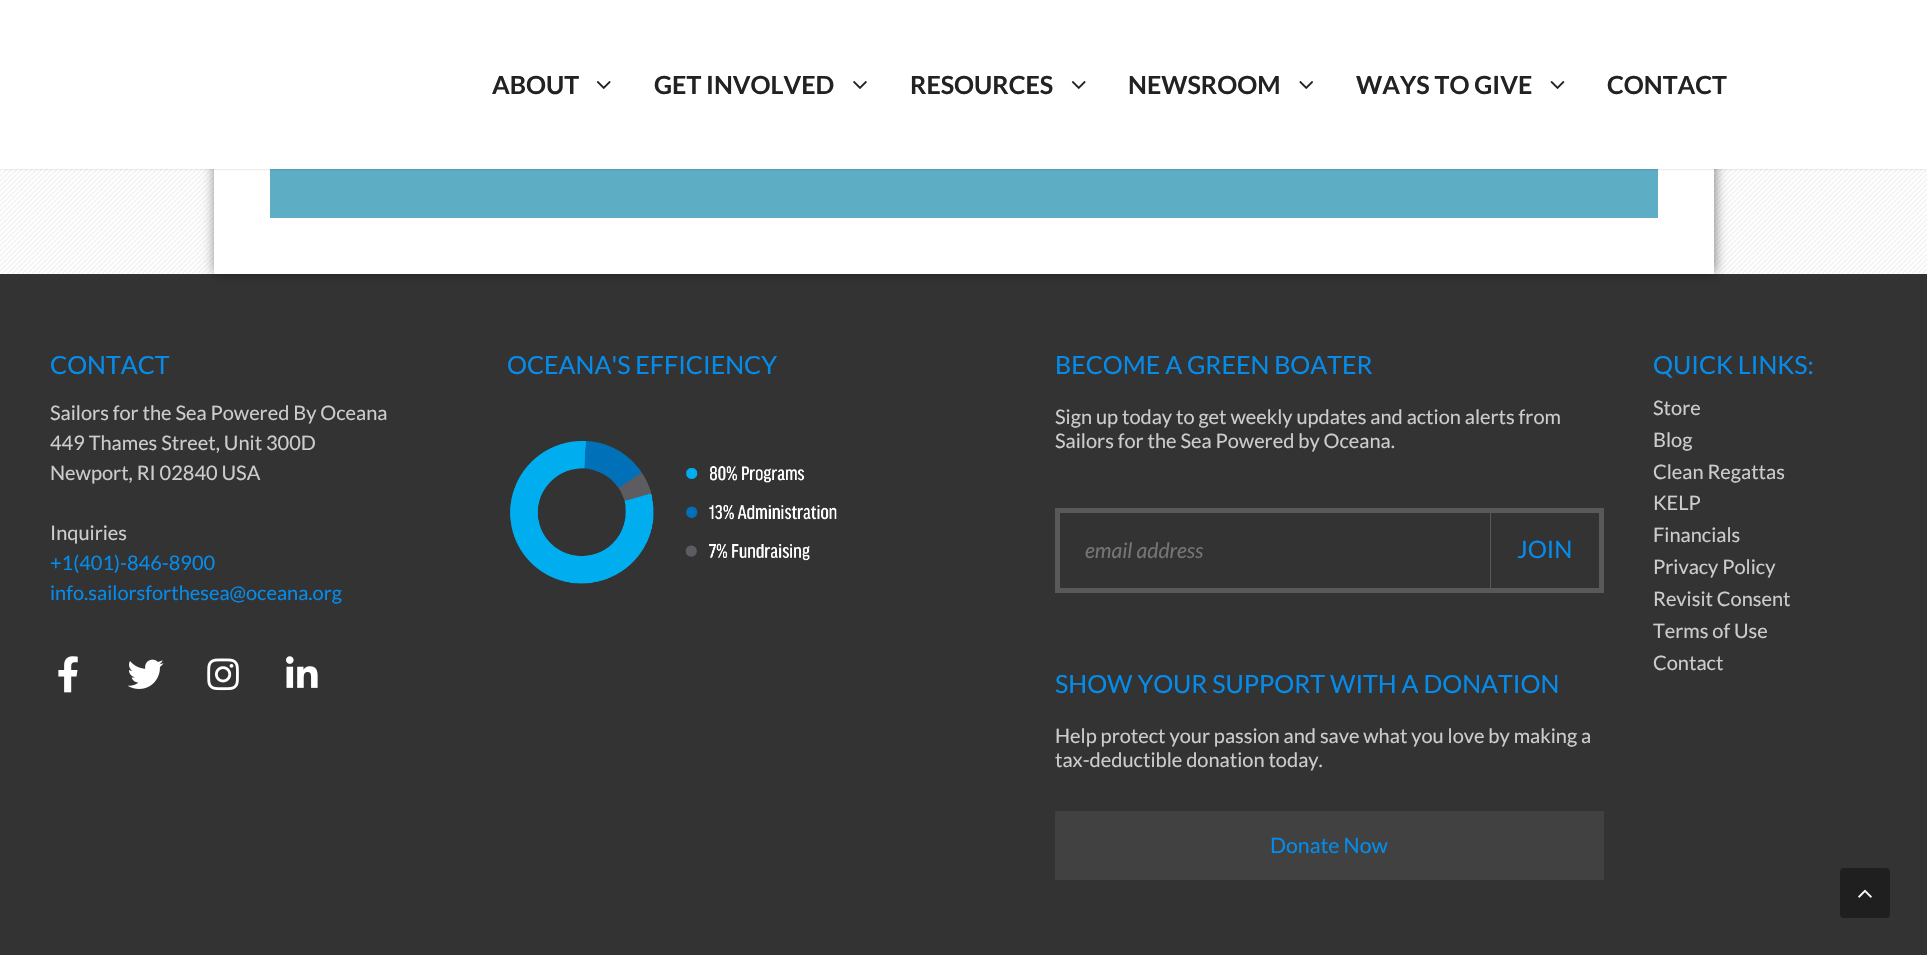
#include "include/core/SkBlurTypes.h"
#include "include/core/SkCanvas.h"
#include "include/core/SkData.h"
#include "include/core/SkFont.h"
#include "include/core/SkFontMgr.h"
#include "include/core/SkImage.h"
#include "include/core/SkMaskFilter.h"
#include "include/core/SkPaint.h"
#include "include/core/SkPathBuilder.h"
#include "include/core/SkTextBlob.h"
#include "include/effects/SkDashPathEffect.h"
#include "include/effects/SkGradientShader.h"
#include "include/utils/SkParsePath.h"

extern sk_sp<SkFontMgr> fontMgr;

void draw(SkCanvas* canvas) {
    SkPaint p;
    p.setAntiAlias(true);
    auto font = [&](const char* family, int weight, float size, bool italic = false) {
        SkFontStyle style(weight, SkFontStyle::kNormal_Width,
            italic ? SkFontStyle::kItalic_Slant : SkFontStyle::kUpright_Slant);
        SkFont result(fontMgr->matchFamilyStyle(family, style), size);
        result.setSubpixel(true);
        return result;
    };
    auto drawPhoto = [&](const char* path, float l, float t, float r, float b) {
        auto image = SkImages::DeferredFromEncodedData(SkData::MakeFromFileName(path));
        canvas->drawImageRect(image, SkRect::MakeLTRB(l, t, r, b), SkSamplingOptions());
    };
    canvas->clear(0xFF333333);
    p.setColor(0xFFFFFFFF);
    canvas->drawRect(SkRect::MakeLTRB(0, 273, 1927, 274), p);
    drawPhoto("media/1.png", 0, 169, 1927, 274);
    p.setColor(0x80000000);
    p.setMaskFilter(SkMaskFilter::MakeBlur(kNormal_SkBlurStyle, 6));
    canvas->drawRect(SkRect::MakeLTRB(215, -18, 1715, 273), p);
    p.setMaskFilter(nullptr);
    p.setColor(0xFFFFFFFF);
    canvas->drawRect(SkRect::MakeLTRB(214, 169, 1714, 274), p);
    p.setColor(0xFF5DADC4);
    canvas->drawRect(SkRect::MakeLTRB(270, 169, 1658, 218), p);
    p.setColor(0x33000000);
    p.setMaskFilter(SkMaskFilter::MakeBlur(kNormal_SkBlurStyle, 1));
    canvas->drawRect(SkRect::MakeLTRB(3, 5, 1925, 169), p);
    p.setMaskFilter(nullptr);
    p.setColor(0xFFFFFFFF);
    canvas->drawRect(SkRect::MakeLTRB(0, 0, 1927, 169), p);
    auto font1 = font("Lato", 700, 25);
    p.setColor(0xFF222222);
    canvas->drawString("ABOUT", 492, 94, font1, p);
    drawPhoto("media/2.png", 596, 81, 611, 89);
    canvas->drawString("GET INVOLVED", 654, 94, font1, p);
    drawPhoto("media/3.png", 853, 81, 867, 89);
    canvas->drawString("RESOURCES", 910, 94, font1, p);
    drawPhoto("media/2.png", 1071, 81, 1086, 89);
    canvas->drawString("NEWSROOM", 1128, 94, font1, p);
    drawPhoto("media/4.png", 1299, 81, 1314, 89);
    canvas->drawString("WAYS TO GIVE", 1356, 94, font1, p);
    drawPhoto("media/5.png", 1550, 81, 1565, 89);
    canvas->drawString("CONTACT", 1607, 94, font1, p);
    auto font2 = font("Lato", 400, 25);
    p.setColor(0xFF058CEB);
    canvas->drawString("CONTACT", 50, 374, font2, p);
    auto font3 = font("Lato", 400, 20);
    p.setColor(0xFFCCCCCC);
    {
        const struct { const char* s; float x, y; } items[] = {
            {"Sailors for the Sea Powered By Oceana", 50, 420},
            {"449 Thames Street, Unit 300D", 50, 450},
            {"Newport, RI 02840 USA", 50, 480},
            {"Inquiries", 50, 540},
        };
        for (auto [s, x, y] : items) {
            canvas->drawString(s, x, y, font3, p);
        }
    }
    p.setColor(0xFF058CEB);
    canvas->drawString("+1(401)-846-8900", 50, 570, font3, p);
    canvas->drawString("info.sailorsforthesea@oceana.org", 50, 600, font3, p);
    drawPhoto("media/6.png", 58, 656, 78, 693);
    drawPhoto("media/7.png", 128, 659, 164, 689);
    drawPhoto("media/8.png", 207, 658, 239, 691);
    drawPhoto("media/9.png", 286, 656, 318, 688);
    canvas->drawString("OCEANA'S EFFICIENCY", 507, 374, font2, p);
    drawPhoto("media/10.png", 510, 441, 837, 584);
    canvas->drawString("BECOME A GREEN BOATER", 1055, 374, font2, p);
    p.setColor(0xFFCCCCCC);
    canvas->drawString("Sign up today to get weekly updates and action alerts from", 1055, 424, font3, p);
    canvas->drawString("Sailors for the Sea Powered by Oceana.", 1055, 448, font3, p);
    p.setStyle(SkPaint::kStroke_Style);
    p.setStrokeWidth(5);
    p.setColor(0xFF57595B);
    canvas->drawRect(SkRect::MakeLTRB(1057.5f, 510.5f, 1601.5f, 590.5f), p);
    p.setStyle(SkPaint::kFill_Style);
    canvas->drawRect(SkRect::MakeLTRB(1490, 513, 1491, 588), p);
    auto font4 = font("Lato", 400, 21.25f, true);
    p.setColor(0xFF757575);
    canvas->drawString("email address", 1085, 558, font4, p);
    auto font5 = font("Lato", 400, 24);
    p.setColor(0xFF058CEB);
    canvas->drawString("JOIN", 1517, 558, font5, p);
    canvas->drawString("SHOW YOUR SUPPORT WITH A DONATION", 1055, 693, font2, p);
    p.setColor(0xFFCCCCCC);
    canvas->drawString("Help protect your passion and save what you love by making a", 1055, 743, font3, p);
    canvas->drawString("tax-deductible donation today.", 1055, 767, font3, p);
    p.setColor(0xFF414141);
    canvas->drawRect(SkRect::MakeLTRB(1055, 811, 1604, 880), p);
    auto font6 = font("Lato", 400, 21.25f);
    p.setColor(0xFF058CEB);
    canvas->drawString("Donate Now", 1270, 853, font6, p);
    canvas->drawString("QUICK LINKS:", 1653, 374, font2, p);
    p.setColor(0xFFCCCCCC);
    {
        const struct { const char* s; float x, y; } items[] = {
            {"Store", 1653, 415},
            {"Blog", 1653, 447},
            {"Clean Regattas", 1653, 479},
            {"KELP", 1653, 510},
            {"Financials", 1653, 542},
            {"Privacy Policy", 1653, 574},
            {"Revisit Consent", 1653, 606},
            {"Terms of Use", 1653, 638},
            {"Contact", 1653, 670},
        };
        for (auto [s, x, y] : items) {
            canvas->drawString(s, x, y, font3, p);
        }
    }
    p.setColor(0xFF1F1F1F);
    canvas->drawRoundRect(SkRect::MakeLTRB(1840, 868, 1890, 918), 4, 4, p);
    drawPhoto("media/11.png", 1858, 889, 1872, 898);
}
